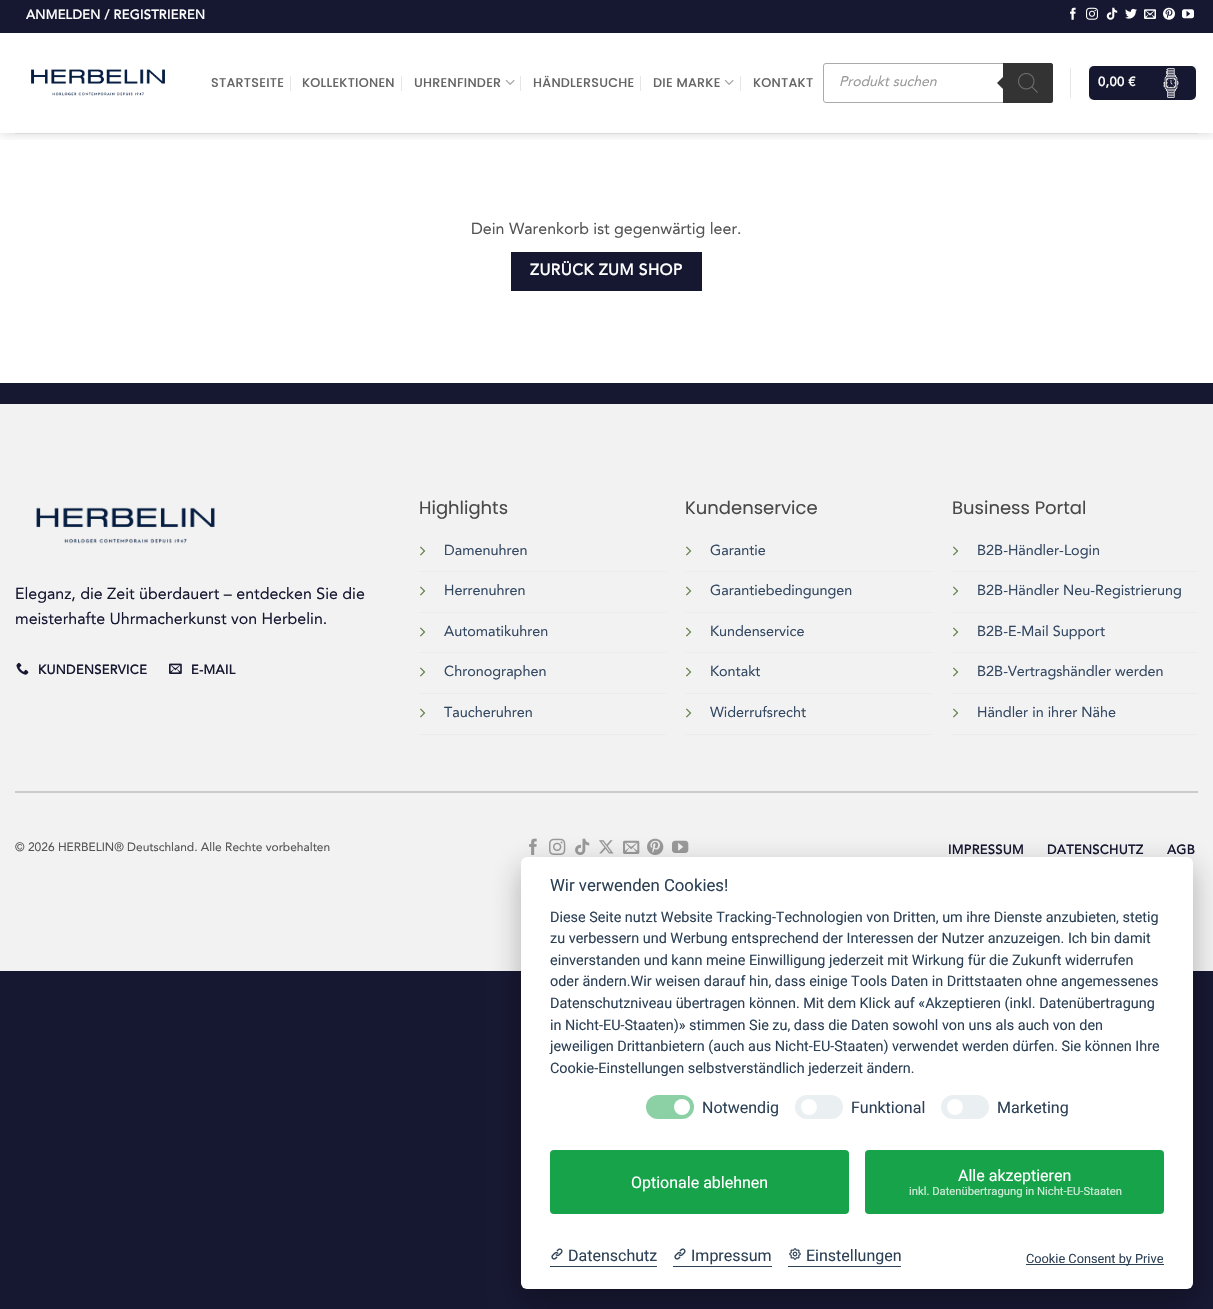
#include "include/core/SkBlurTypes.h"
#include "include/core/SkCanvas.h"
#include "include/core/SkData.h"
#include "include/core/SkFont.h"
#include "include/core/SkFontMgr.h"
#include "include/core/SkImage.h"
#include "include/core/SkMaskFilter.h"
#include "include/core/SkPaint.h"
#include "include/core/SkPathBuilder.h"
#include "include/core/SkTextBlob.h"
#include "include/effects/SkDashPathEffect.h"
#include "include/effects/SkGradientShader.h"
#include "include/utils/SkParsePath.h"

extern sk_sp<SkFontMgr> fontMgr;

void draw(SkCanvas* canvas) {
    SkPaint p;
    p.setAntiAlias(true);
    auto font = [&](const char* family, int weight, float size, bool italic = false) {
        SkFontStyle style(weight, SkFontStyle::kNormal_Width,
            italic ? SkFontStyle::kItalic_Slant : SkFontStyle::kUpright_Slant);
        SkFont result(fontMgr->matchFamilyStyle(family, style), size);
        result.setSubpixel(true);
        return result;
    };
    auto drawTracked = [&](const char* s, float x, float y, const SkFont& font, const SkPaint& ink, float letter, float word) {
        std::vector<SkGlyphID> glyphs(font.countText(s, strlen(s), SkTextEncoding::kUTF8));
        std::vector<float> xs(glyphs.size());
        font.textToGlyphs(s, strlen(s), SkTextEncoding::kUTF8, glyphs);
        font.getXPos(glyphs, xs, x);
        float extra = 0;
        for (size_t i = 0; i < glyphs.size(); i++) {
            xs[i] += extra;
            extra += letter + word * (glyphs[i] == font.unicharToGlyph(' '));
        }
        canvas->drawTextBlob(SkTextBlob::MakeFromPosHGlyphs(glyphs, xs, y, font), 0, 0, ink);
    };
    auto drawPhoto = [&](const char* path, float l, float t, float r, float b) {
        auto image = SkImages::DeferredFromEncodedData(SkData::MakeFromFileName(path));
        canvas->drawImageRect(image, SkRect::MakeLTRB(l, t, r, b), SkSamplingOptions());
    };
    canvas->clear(0xFF161731);
    p.setColor(0xFFFFFFFF);
    canvas->drawRect(SkRect::MakeLTRB(0, 33, 1213, 383), p);
    canvas->save();
    canvas->clipRect(SkRect::MakeLTRB(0, 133, 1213, 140));
    p.setColor(0x26000000);
    p.setMaskFilter(SkMaskFilter::MakeBlur(kNormal_SkBlurStyle, 5));
    canvas->drawRect(SkRect::MakeLTRB(1, 1, 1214, 134), p);
    p.setMaskFilter(nullptr);
    canvas->restore();
    auto font1 = font("Avenir", 700, 12.75f);
    p.setColor(0xFFFFFFFF);
    drawTracked("ANMELDEN / REGISTRIEREN", 26, 19, font1, p, 0.4f, 0);
    drawPhoto("media/1.png", 1070, 7, 1076, 20);
    drawPhoto("media/2.png", 1086, 7, 1098, 20);
    drawPhoto("media/3.png", 1106, 7, 1118, 20);
    drawPhoto("media/4.png", 1125, 8, 1137, 19);
    drawPhoto("media/5.png", 1144, 9, 1156, 19);
    drawPhoto("media/6.png", 1163, 7, 1175, 20);
    drawPhoto("media/7.png", 1182, 9, 1194, 19);
    drawPhoto("media/8.png", 31, 69, 165, 96);
    auto font2 = font("Poppins", 500, 12.75f);
    p.setColor(0xFF656565);
    drawTracked("STARTSEITE", 211, 87, font2, p, 0.25f, 0);
    p.setColor(0xFFE6E6E6);
    canvas->drawRect(SkRect::MakeLTRB(290, 76, 291, 91), p);
    p.setColor(0xFF656565);
    drawTracked("KOLLEKTIONEN", 302, 87, font2, p, 0.25f, 0);
    p.setColor(0xFFE6E6E6);
    canvas->drawRect(SkRect::MakeLTRB(401, 76, 402, 91), p);
    p.setColor(0xFF656565);
    drawTracked("UHRENFINDER", 414, 87, font2, p, 0.25f, 0);
    drawPhoto("media/9.png", 505, 79, 515, 85);
    p.setColor(0xFFE6E6E6);
    canvas->drawRect(SkRect::MakeLTRB(520, 76, 521, 91), p);
    p.setColor(0xFF656565);
    drawTracked("HÄNDLERSUCHE", 533, 87, font2, p, 0.25f, 0);
    p.setColor(0xFFE6E6E6);
    canvas->drawRect(SkRect::MakeLTRB(640, 76, 641, 91), p);
    p.setColor(0xFF656565);
    drawTracked("DIE MARKE", 653, 87, font2, p, 0.25f, 0);
    drawPhoto("media/9.png", 724, 79, 734, 85);
    p.setColor(0xFFE6E6E6);
    canvas->drawRect(SkRect::MakeLTRB(740, 76, 741, 91), p);
    p.setColor(0xFF656565);
    drawTracked("KONTAKT", 753, 87, font2, p, 0.25f, 0);
    p.setStyle(SkPaint::kStroke_Style);
    p.setStrokeWidth(1);
    p.setColor(0xFFAAAAAA);
    canvas->drawRoundRect(SkRect::MakeLTRB(823.5f, 63.5f, 1052.5f, 102.5f), 2.5f, 2.5f, p);
    auto font3 = font("Avenir", 400, 14, true);
    p.setStyle(SkPaint::kFill_Style);
    p.setColor(0xFF999999);
    canvas->drawString("Produkt suchen", 839, 86, font3, p);
    p.setColor(0xFF333333);
    canvas->drawPath(SkPathBuilder().moveTo(1003, 63).lineTo(1051, 63).cubicTo(1052, 63, 1053, 64, 1053, 65).lineTo(1053, 101).cubicTo(1053, 102, 1052, 103, 1051, 103).lineTo(1003, 103).close().detach(), p);
    canvas->drawPath(SkPathBuilder().moveTo(1005, 75).lineTo(1005, 91).lineTo(997, 83).close().detach(), p);
    drawPhoto("media/10.png", 1018, 73, 1038, 93);
    p.setColor(0xFFE6E6E6);
    canvas->drawRect(SkRect::MakeLTRB(1070, 68, 1071, 98), p);
    p.setColor(0xFF161731);
    canvas->drawRoundRect(SkRect::MakeLTRB(1089, 66, 1196, 100), 5, 5, p);
    p.setStyle(SkPaint::kStroke_Style);
    p.setColor(0x0D000000);
    canvas->drawRect(SkRect::MakeLTRB(1089.5f, 66.5f, 1195.5f, 99.5f), p);
    p.setStyle(SkPaint::kFill_Style);
    p.setColor(0xFFFFFFFF);
    drawTracked("0,00 €", 1098, 86, font1, p, 0.4f, 0);
    drawPhoto("media/11.png", 1163, 68, 1179, 98);
    p.setColor(0xFFDBDBDB);
    canvas->drawRect(SkRect::MakeLTRB(15, 133, 1198, 134), p);
    auto font4 = font("Avenir", 400, 16);
    p.setColor(0xFF545454);
    canvas->drawString("Dein Warenkorb ist gegenwärtig leer.", 471, 234, font4, p);
    p.setColor(0xFF161731);
    canvas->drawRect(SkRect::MakeLTRB(511.5f, 252.5f, 701.5f, 290.5f), p);
    p.setStyle(SkPaint::kStroke_Style);
    p.setColor(0xFF15162F);
    canvas->drawRect(SkRect::MakeLTRB(511.5f, 252.5f, 701.5f, 290.5f), p);
    auto font5 = font("Avenir", 700, 15.5f);
    p.setStyle(SkPaint::kFill_Style);
    p.setColor(0xFFFFFFFF);
    drawTracked("ZURÜCK ZUM SHOP", 530, 275, font5, p, 0.5f, 0);
    p.setColor(0xFFF2F2F2);
    canvas->drawRect(SkRect::MakeLTRB(0, 404, 1213, 971), p);
    drawPhoto("media/12.png", 36, 507, 215, 544);
    p.setColor(0xFF161731);
    canvas->drawString("Eleganz, die Zeit überdauert – entdecken Sie die", 15, 599, font4, p);
    canvas->drawString("meisterhafte Uhrmacherkunst von Herbelin.", 15, 624, font4, p);
    drawPhoto("media/13.png", 16, 662, 29, 675);
    drawTracked("KUNDENSERVICE", 38, 674, font1, p, 0.4f, 0);
    drawPhoto("media/14.png", 169, 663, 182, 674);
    drawTracked("E-MAIL", 191, 674, font1, p, 0.4f, 0);
    auto font6 = font("Poppins", 400, 18);
    p.setColor(0xFF494949);
    canvas->drawString("Highlights", 419, 514, font6, p);
    p.setColor(0xFFECECEC);
    canvas->drawRect(SkRect::MakeLTRB(419, 571, 666, 572), p);
    drawPhoto("media/15.png", 420, 546, 426, 556);
    auto font7 = font("Avenir", 400, 14.4f);
    p.setColor(0xFF334862);
    canvas->drawString("Damenuhren", 444, 555, font7, p);
    p.setColor(0xFFECECEC);
    canvas->drawRect(SkRect::MakeLTRB(419, 612, 666, 613), p);
    drawPhoto("media/15.png", 420, 586, 426, 596);
    p.setColor(0xFF334862);
    canvas->drawString("Herrenuhren", 444, 595, font7, p);
    p.setColor(0xFFECECEC);
    canvas->drawRect(SkRect::MakeLTRB(419, 652, 666, 653), p);
    drawPhoto("media/15.png", 420, 627, 426, 637);
    p.setColor(0xFF334862);
    canvas->drawString("Automatikuhren", 444, 636, font7, p);
    p.setColor(0xFFECECEC);
    canvas->drawRect(SkRect::MakeLTRB(419, 693, 666, 694), p);
    drawPhoto("media/15.png", 420, 667, 426, 677);
    p.setColor(0xFF334862);
    canvas->drawString("Chronographen", 444, 676, font7, p);
    p.setColor(0xFFECECEC);
    canvas->drawRect(SkRect::MakeLTRB(419, 734, 666, 735), p);
    drawPhoto("media/15.png", 420, 708, 426, 718);
    p.setColor(0xFF334862);
    canvas->drawString("Taucheruhren", 444, 717, font7, p);
    p.setColor(0xFF494949);
    canvas->drawString("Kundenservice", 685, 514, font6, p);
    p.setColor(0xFFECECEC);
    canvas->drawRect(SkRect::MakeLTRB(685, 571, 932, 572), p);
    drawPhoto("media/15.png", 686, 546, 692, 556);
    p.setColor(0xFF334862);
    canvas->drawString("Garantie", 710, 555, font7, p);
    p.setColor(0xFFECECEC);
    canvas->drawRect(SkRect::MakeLTRB(685, 612, 932, 613), p);
    drawPhoto("media/15.png", 686, 586, 692, 596);
    p.setColor(0xFF334862);
    canvas->drawString("Garantiebedingungen", 710, 595, font7, p);
    p.setColor(0xFFECECEC);
    canvas->drawRect(SkRect::MakeLTRB(685, 652, 932, 653), p);
    drawPhoto("media/15.png", 686, 627, 692, 637);
    p.setColor(0xFF334862);
    canvas->drawString("Kundenservice", 710, 636, font7, p);
    p.setColor(0xFFECECEC);
    canvas->drawRect(SkRect::MakeLTRB(685, 693, 932, 694), p);
    drawPhoto("media/15.png", 686, 667, 692, 677);
    p.setColor(0xFF334862);
    canvas->drawString("Kontakt", 710, 676, font7, p);
    p.setColor(0xFFECECEC);
    canvas->drawRect(SkRect::MakeLTRB(685, 734, 932, 735), p);
    drawPhoto("media/15.png", 686, 708, 692, 718);
    p.setColor(0xFF334862);
    canvas->drawString("Widerrufsrecht", 710, 717, font7, p);
    p.setColor(0xFF494949);
    canvas->drawString("Business Portal", 952, 514, font6, p);
    p.setColor(0xFFECECEC);
    canvas->drawRect(SkRect::MakeLTRB(952, 571, 1198, 572), p);
    drawPhoto("media/15.png", 953, 546, 959, 556);
    p.setColor(0xFF334862);
    canvas->drawString("B2B-Händler-Login", 977, 555, font7, p);
    p.setColor(0xFFECECEC);
    canvas->drawRect(SkRect::MakeLTRB(952, 612, 1198, 613), p);
    drawPhoto("media/15.png", 953, 586, 959, 596);
    p.setColor(0xFF334862);
    canvas->drawString("B2B-Händler Neu-Registrierung", 977, 595, font7, p);
    p.setColor(0xFFECECEC);
    canvas->drawRect(SkRect::MakeLTRB(952, 652, 1198, 653), p);
    drawPhoto("media/15.png", 953, 627, 959, 637);
    p.setColor(0xFF334862);
    canvas->drawString("B2B-E-Mail Support", 977, 636, font7, p);
    p.setColor(0xFFECECEC);
    canvas->drawRect(SkRect::MakeLTRB(952, 693, 1198, 694), p);
    drawPhoto("media/15.png", 953, 667, 959, 677);
    p.setColor(0xFF334862);
    canvas->drawString("B2B-Vertragshändler werden", 977, 676, font7, p);
    p.setColor(0xFFECECEC);
    canvas->drawRect(SkRect::MakeLTRB(952, 734, 1198, 735), p);
    drawPhoto("media/15.png", 953, 708, 959, 718);
    p.setColor(0xFF334862);
    canvas->drawString("Händler in ihrer Nähe", 977, 717, font7, p);
    p.setColor(0xFFCBCBCB);
    canvas->drawRect(SkRect::MakeLTRB(15, 791, 1198, 793), p);
    auto font8 = font("Avenir", 400, 12);
    p.setColor(0xFF545454);
    canvas->drawString("© 2026 HERBELIN® Deutschland. Alle Rechte vorbehalten", 15, 851, font8, p);
    drawPhoto("media/16.png", 529, 838, 537, 855);
    drawPhoto("media/17.png", 549, 838, 566, 855);
    drawPhoto("media/18.png", 575, 838, 590, 855);
    drawPhoto("media/19.png", 599, 840, 614, 854);
    drawPhoto("media/20.png", 623, 840, 640, 854);
    drawPhoto("media/21.png", 647, 838, 664, 855);
    drawPhoto("media/22.png", 672, 840, 689, 853);
    p.setColor(0xFF161731);
    {
        const struct { const char* s; float x, y; } items[] = {
            {"IMPRESSUM", 948, 854},
            {"DATENSCHUTZ", 1047, 854},
            {"AGB", 1167, 854},
        };
        for (auto [s, x, y] : items) {
            drawTracked(s, x, y, font1, p, 0.4f, 0);
        }
    }
    p.setColor(0x47020203);
    p.setMaskFilter(SkMaskFilter::MakeBlur(kNormal_SkBlurStyle, 15));
    canvas->drawRoundRect(SkRect::MakeLTRB(521, 867, 1193, 1299), 6, 6, p);
    p.setMaskFilter(nullptr);
    p.setColor(0xFFFFFFFF);
    canvas->drawRoundRect(SkRect::MakeLTRB(521, 857, 1193, 1289), 6, 6, p);
    auto font9 = font("Roboto", 400, 16.75f);
    p.setColor(0xFF2D4156);
    canvas->drawString("Wir verwenden Cookies!", 550, 891, font9, p);
    auto font10 = font("Roboto", 400, 14.4f);
    {
        const struct { const char* s; float x, y; } items[] = {
            {"Diese Seite nutzt Website Tracking-Technologien von Dritten, um ihre Dienste anzubieten, stetig", 550, 922},
            {"zu verbessern und Werbung entsprechend der Interessen der Nutzer anzuzeigen. Ich bin damit", 550, 943},
            {"einverstanden und kann meine Einwilligung jederzeit mit Wirkung für die Zukunft widerrufen", 550, 965},
            {"oder ändern.Wir weisen darauf hin, dass einige Tools Daten in Drittstaaten ohne angemessenes", 550, 986},
            {"Datenschutzniveau übertragen können. Mit dem Klick auf «Akzeptieren (inkl. Datenübertragung", 550, 1008},
            {"in Nicht-EU-Staaten)» stimmen Sie zu, dass die Daten sowohl von uns als auch von den", 550, 1030},
            {"jeweiligen Drittanbietern (auch aus Nicht-EU-Staaten) verwendet werden dürfen. Sie können Ihre", 550, 1051},
            {"Cookie-Einstellungen selbstverständlich jederzeit ändern.", 550, 1073},
        };
        for (auto [s, x, y] : items) {
            canvas->drawString(s, x, y, font10, p);
        }
    }
    p.setColor(0xFF8BD1A5);
    canvas->drawRoundRect(SkRect::MakeLTRB(646, 1095, 694, 1119), 12, 12, p);
    p.setColor(0xFFFFFFFF);
    canvas->drawCircle(682, 1107, 8, p);
    auto font11 = font("Roboto", 400, 16);
    p.setColor(0xFF2D4156);
    canvas->drawString("Notwendig", 702, 1113, font11, p);
    p.setColor(0xFFEAEFF2);
    canvas->drawRoundRect(SkRect::MakeLTRB(795, 1095, 843, 1119), 12, 12, p);
    p.setColor(0xFFFFFFFF);
    canvas->drawCircle(809, 1107, 8, p);
    p.setColor(0xFF2D4156);
    canvas->drawString("Funktional", 851, 1113, font11, p);
    p.setColor(0xFFEAEFF2);
    canvas->drawRoundRect(SkRect::MakeLTRB(941, 1095, 989, 1119), 12, 12, p);
    p.setColor(0xFFFFFFFF);
    canvas->drawCircle(955, 1107, 8, p);
    p.setColor(0xFF2D4156);
    canvas->drawString("Marketing", 997, 1113, font11, p);
    p.setColor(0xFF16A34A);
    canvas->drawRoundRect(SkRect::MakeLTRB(550, 1150, 849, 1214), 4, 4, p);
    p.setColor(0xFFFFFFFF);
    canvas->drawString("Optionale ablehnen", 631, 1188, font11, p);
    p.setColor(0xFF16A34A);
    canvas->drawRoundRect(SkRect::MakeLTRB(865, 1150, 1164, 1214), 4, 4, p);
    p.setColor(0xFFFFFFFF);
    canvas->drawString("Alle akzeptieren", 958, 1181, font11, p);
    auto font12 = font("Roboto", 400, 11.25f);
    p.setColor(0xFFD0EDDB);
    canvas->drawString("inkl. Datenübertragung in Nicht-EU-Staaten", 909, 1195, font12, p);
    p.setColor(0xFF2D4156);
    canvas->drawRect(SkRect::MakeLTRB(550, 1266, 657, 1267), p);
    drawPhoto("media/23.png", 551, 1248, 563, 1260);
    canvas->drawString("Datenschutz", 568, 1261, font11, p);
    canvas->drawRect(SkRect::MakeLTRB(673, 1266, 772, 1267), p);
    drawPhoto("media/23.png", 674, 1248, 686, 1260);
    canvas->drawString("Impressum", 691, 1261, font11, p);
    canvas->drawRect(SkRect::MakeLTRB(788, 1266, 901, 1267), p);
    drawPhoto("media/24.png", 789, 1248, 801, 1260);
    canvas->drawString("Einstellungen", 806, 1261, font11, p);
    canvas->drawRect(SkRect::MakeLTRB(1026, 1264, 1164, 1265), p);
    auto font13 = font("Roboto", 400, 12.75f);
    canvas->drawString("Cookie Consent by Prive", 1026, 1263, font13, p);
}
